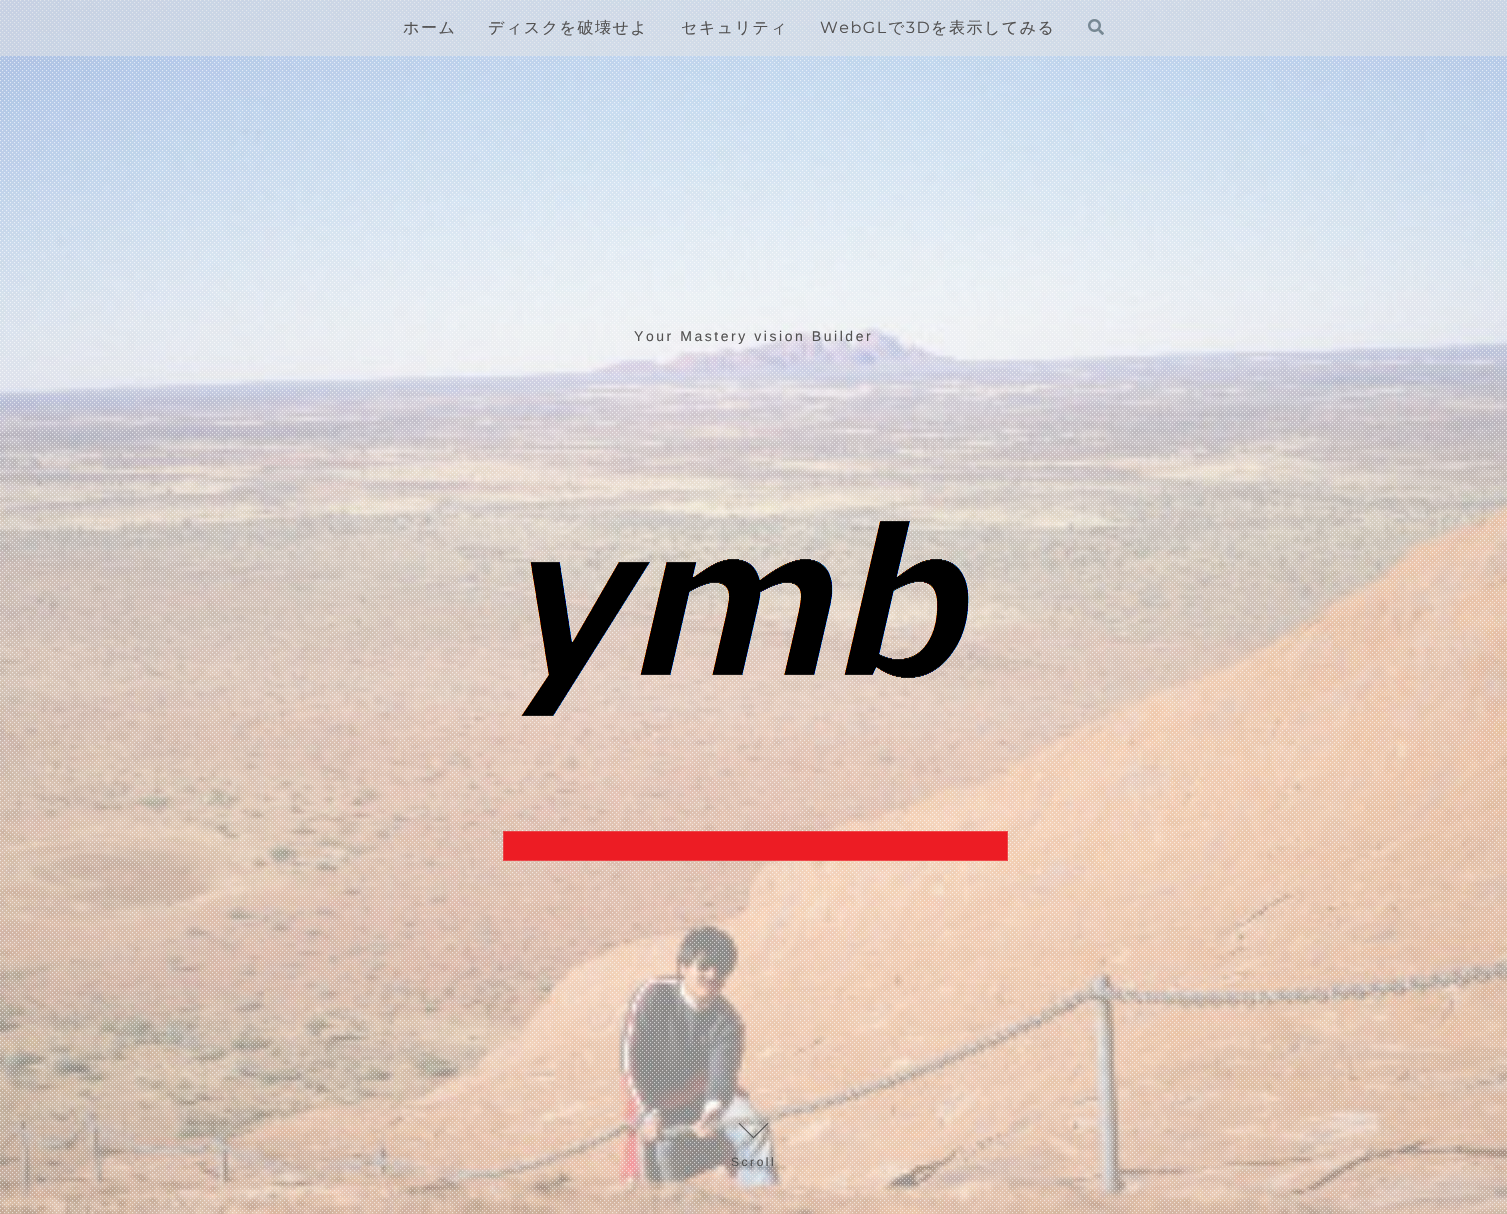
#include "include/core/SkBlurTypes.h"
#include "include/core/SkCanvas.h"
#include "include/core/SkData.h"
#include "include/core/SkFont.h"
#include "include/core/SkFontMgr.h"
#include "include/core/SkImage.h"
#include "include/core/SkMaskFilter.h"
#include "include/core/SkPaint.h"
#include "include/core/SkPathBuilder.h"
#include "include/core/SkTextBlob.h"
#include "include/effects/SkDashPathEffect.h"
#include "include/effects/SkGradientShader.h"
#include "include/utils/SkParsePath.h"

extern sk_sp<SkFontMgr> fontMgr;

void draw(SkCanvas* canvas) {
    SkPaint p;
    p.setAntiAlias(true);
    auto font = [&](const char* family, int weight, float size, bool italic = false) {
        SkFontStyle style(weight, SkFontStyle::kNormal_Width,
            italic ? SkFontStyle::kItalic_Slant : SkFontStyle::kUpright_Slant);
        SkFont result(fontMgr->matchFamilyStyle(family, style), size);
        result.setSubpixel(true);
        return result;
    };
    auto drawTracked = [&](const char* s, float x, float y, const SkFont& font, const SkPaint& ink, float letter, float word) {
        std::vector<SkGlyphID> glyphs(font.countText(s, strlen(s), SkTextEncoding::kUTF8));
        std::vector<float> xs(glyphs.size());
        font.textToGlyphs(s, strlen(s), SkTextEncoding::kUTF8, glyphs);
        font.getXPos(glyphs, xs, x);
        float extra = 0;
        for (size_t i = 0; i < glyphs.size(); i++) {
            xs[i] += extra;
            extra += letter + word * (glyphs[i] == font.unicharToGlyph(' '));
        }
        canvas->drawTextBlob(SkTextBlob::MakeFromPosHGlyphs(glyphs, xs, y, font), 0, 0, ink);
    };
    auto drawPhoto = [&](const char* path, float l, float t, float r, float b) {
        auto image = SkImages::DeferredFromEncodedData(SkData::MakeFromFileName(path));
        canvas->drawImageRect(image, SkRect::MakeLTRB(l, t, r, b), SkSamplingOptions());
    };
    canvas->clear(0xFFFFFFFF);
    drawPhoto("media/2.png", 0, 0, 1507, 1214);
    drawPhoto("media/3.png", 0, 0, 1507, 1214);
    p.setColor(0x80E4E4E3);
    canvas->drawRect(SkRect::MakeLTRB(0, 0, 1507, 56), p);
    auto font1 = font("WenQuanYi Zen Hei", 500, 16);
    p.setColor(0xFF535252);
    {
        const struct { const char* s; float x, y; } items[] = {
            {"ホーム", 403, 33},
            {"ディスクを破壊せよ", 488, 33},
            {"セキュリティ", 681, 33},
        };
        for (auto [s, x, y] : items) {
            drawTracked(s, x, y, font1, p, 1.5f, 0);
        }
    }
    auto font2 = font("Montserrat", 400, 16);
    drawTracked("WebGL", 820, 33, font2, p, 1.5f, 0);
    drawTracked("で", 888, 33, font1, p, 1.5f, 0);
    drawTracked("3D", 906, 33, font2, p, 1.5f, 0);
    drawTracked("を表示してみる", 931, 33, font1, p, 1.5f, 0);
    drawPhoto("media/1.png", 1088, 19, 1104, 35);
    auto font3 = font("Liberation Sans", 400, 14);
    drawTracked("Your Mastery vision Builder", 634, 341, font3, p, 2.55f, 0);
    drawPhoto("media/4.png", 503, 521, 1008, 861);
    canvas->drawPath(SkPathBuilder().moveTo(753, 1137.5f).lineTo(767.5f, 1123).lineTo(768.5f, 1123.5f).lineTo(753.5f, 1138.5f).close().detach(), p);
    canvas->drawPath(SkPathBuilder().moveTo(738.5f, 1123.5f).lineTo(739.5f, 1123).lineTo(754, 1137.5f).lineTo(753.5f, 1138.5f).close().detach(), p);
    auto font4 = font("Liberation Sans", 400, 12);
    drawTracked("Scroll", 731, 1166, font4, p, 2.55f, 0);
}
